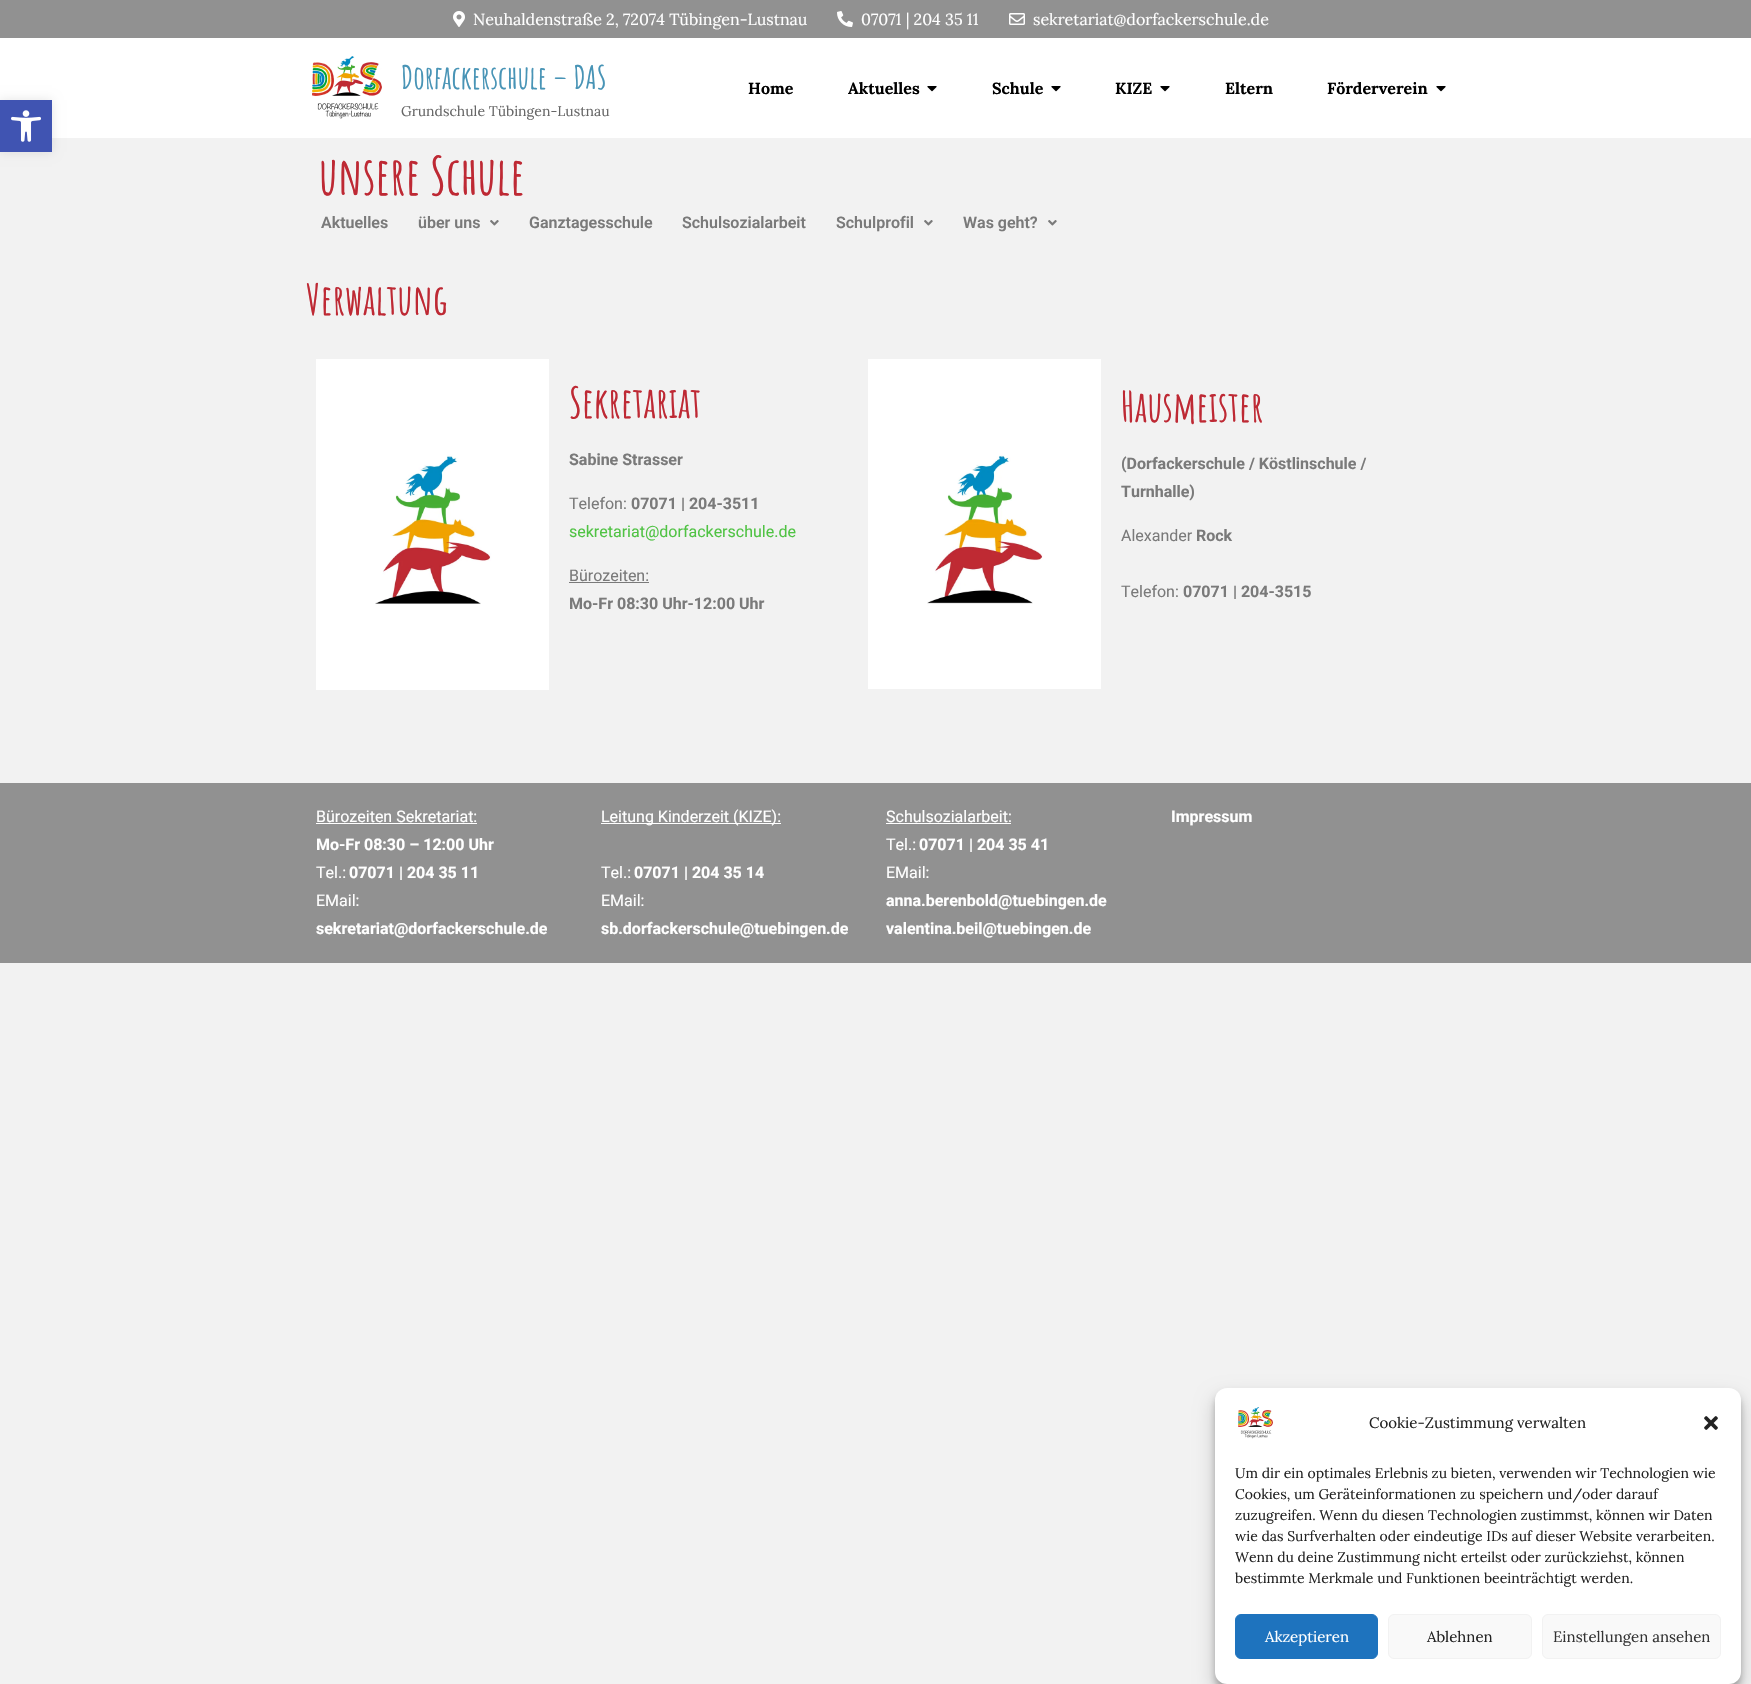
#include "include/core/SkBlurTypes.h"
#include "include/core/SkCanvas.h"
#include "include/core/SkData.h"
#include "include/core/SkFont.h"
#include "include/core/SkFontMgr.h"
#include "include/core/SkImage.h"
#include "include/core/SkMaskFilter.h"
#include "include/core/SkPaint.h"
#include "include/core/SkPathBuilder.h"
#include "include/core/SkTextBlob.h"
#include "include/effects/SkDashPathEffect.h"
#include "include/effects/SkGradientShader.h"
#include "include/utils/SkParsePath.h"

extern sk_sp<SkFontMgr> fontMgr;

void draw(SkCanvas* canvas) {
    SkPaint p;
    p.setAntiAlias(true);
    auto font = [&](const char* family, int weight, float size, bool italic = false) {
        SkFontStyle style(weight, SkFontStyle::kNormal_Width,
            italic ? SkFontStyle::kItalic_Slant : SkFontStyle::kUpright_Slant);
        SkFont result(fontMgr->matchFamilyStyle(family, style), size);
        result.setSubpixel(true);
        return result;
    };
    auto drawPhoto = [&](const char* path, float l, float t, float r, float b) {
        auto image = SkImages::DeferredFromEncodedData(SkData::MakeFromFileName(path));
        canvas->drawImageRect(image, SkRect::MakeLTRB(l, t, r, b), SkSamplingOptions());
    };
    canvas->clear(0xFFF2F2F2);
    p.setColor(0xFFFFFFFF);
    canvas->drawRect(SkRect::MakeLTRB(0, 38, 1751, 138), p);
    p.setColor(0x1A000000);
    p.setMaskFilter(SkMaskFilter::MakeBlur(kNormal_SkBlurStyle, 5));
    canvas->drawRect(SkRect::MakeLTRB(0, 100, 52, 152), p);
    p.setMaskFilter(nullptr);
    p.setColor(0xFF4054B2);
    canvas->drawRect(SkRect::MakeLTRB(0, 100, 52, 152), p);
    drawPhoto("media/1.png", 11, 110, 41, 142);
    p.setColor(0xFF919191);
    canvas->drawRect(SkRect::MakeLTRB(0, 0, 1751, 38), p);
    drawPhoto("media/2.png", 453, 11, 465, 27);
    auto font1 = font("Lora", 400, 16);
    p.setColor(0xFFFFFFFF);
    canvas->drawString("Neuhaldenstraße 2, 72074 Tübingen-Lustnau", 473, 25, font1, p);
    drawPhoto("media/3.png", 837, 11, 853, 27);
    canvas->drawString("07071 | 204 35 11", 861, 25, font1, p);
    drawPhoto("media/4.png", 1009, 13, 1025, 25);
    canvas->drawString("sekretariat@dorfackerschule.de", 1033, 25, font1, p);
    drawPhoto("media/5.png", 312, 56, 382, 119);
    auto font2 = font("Amatic SC", 700, 32);
    p.setColor(0xFF4894B6);
    canvas->drawString("Dorfackerschule – DAS", 401, 89, font2, p);
    auto font3 = font("Lora", 400, 14);
    p.setColor(0xFF666666);
    canvas->drawString("Grundschule Tübingen-Lustnau", 401, 116, font3, p);
    auto font4 = font("Lora", 700, 16);
    p.setColor(0xFF000000);
    canvas->drawString("Home", 748, 94, font4, p);
    canvas->drawString("Aktuelles", 848, 94, font4, p);
    drawPhoto("media/6.png", 927, 86, 937, 92);
    canvas->drawString("Schule", 992, 94, font4, p);
    drawPhoto("media/6.png", 1051, 86, 1061, 92);
    canvas->drawString("KIZE", 1115, 94, font4, p);
    drawPhoto("media/6.png", 1160, 86, 1170, 92);
    canvas->drawString("Eltern", 1225, 94, font4, p);
    canvas->drawString("Förderverein", 1327, 94, font4, p);
    drawPhoto("media/6.png", 1436, 86, 1446, 92);
    auto font5 = font("Amatic SC", 700, 52);
    p.setColor(0xFFBE2934);
    canvas->drawString("unsere Schule", 319, 195, font5, p);
    auto font6 = font("Roboto", 600, 16);
    p.setColor(0xFF7A7A7A);
    canvas->drawString("Aktuelles", 321, 228, font6, p);
    canvas->drawString("über uns", 418, 228, font6, p);
    drawPhoto("media/7.png", 490, 220, 499, 226);
    {
        const struct { const char* s; float x, y; } items[] = {
            {"Ganztagesschule", 529, 228},
            {"Schulsozialarbeit", 682, 228},
            {"Schulprofil", 836, 228},
        };
        for (auto [s, x, y] : items) {
            canvas->drawString(s, x, y, font6, p);
        }
    }
    drawPhoto("media/7.png", 924, 220, 933, 226);
    canvas->drawString("Was geht?", 963, 228, font6, p);
    drawPhoto("media/7.png", 1048, 220, 1057, 226);
    auto font7 = font("Amatic SC", 700, 42);
    p.setColor(0xFFBE2934);
    canvas->drawString("Verwaltung", 306, 315, font7, p);
    drawPhoto("media/8.png", 316, 359, 549, 690);
    canvas->drawString("Sekretariat", 569, 418, font7, p);
    auto font8 = font("Roboto", 700, 16);
    p.setColor(0xFF7A7A7A);
    canvas->drawString("Sabine Strasser", 569, 465, font8, p);
    auto font9 = font("Roboto", 400, 16);
    canvas->drawString("Telefon:", 569, 509, font9, p);
    canvas->drawString("07071 | 204-3511", 631, 509, font8, p);
    p.setColor(0xFF50C344);
    canvas->drawString("sekretariat@dorfackerschule.de", 569, 537, font9, p);
    p.setColor(0xFF7A7A7A);
    canvas->drawString("Bürozeiten:", 569, 581, font9, p);
    canvas->drawRect(SkRect::MakeLTRB(569, 582, 649, 583), p);
    canvas->drawString("Mo-Fr 08:30 Uhr-12:00 Uhr", 569, 609, font8, p);
    drawPhoto("media/9.png", 868, 359, 1101, 689);
    p.setColor(0xFFBE2934);
    canvas->drawString("Hausmeister", 1121, 422, font7, p);
    p.setColor(0xFF7A7A7A);
    canvas->drawString("(Dorfackerschule / Köstlinschule /", 1121, 469, font8, p);
    canvas->drawString("Turnhalle)", 1121, 497, font8, p);
    canvas->drawString("Alexander", 1121, 541, font9, p);
    canvas->drawString("Rock", 1196, 541, font8, p);
    canvas->drawString("Telefon:", 1121, 597, font9, p);
    canvas->drawString("07071 | 204-3515", 1183, 597, font8, p);
    p.setColor(0xFF919191);
    canvas->drawRect(SkRect::MakeLTRB(0, 783, 1751, 963), p);
    p.setColor(0xFFFFFFFF);
    canvas->drawString("Bürozeiten Sekretariat:", 316, 822, font9, p);
    canvas->drawRect(SkRect::MakeLTRB(316, 823, 477, 824), p);
    canvas->drawString("Mo-Fr 08:30 – 12:00 Uhr", 316, 850, font8, p);
    canvas->drawString("Tel.:", 316, 878, font9, p);
    canvas->drawString("07071 | 204 35 11", 349, 878, font8, p);
    canvas->drawString("EMail:", 316, 906, font9, p);
    canvas->drawString("sekretariat@dorfackerschule.de", 316, 934, font8, p);
    canvas->drawRect(SkRect::MakeLTRB(601, 823, 781, 824), p);
    canvas->drawString("Leitung Kinderzeit (KIZE):", 601, 822, font9, p);
    canvas->drawString("Tel.:", 601, 878, font9, p);
    canvas->drawString("07071 | 204 35 14", 634, 878, font8, p);
    canvas->drawString("EMail:", 601, 906, font9, p);
    canvas->drawString("sb.dorfackerschule@tuebingen.de", 601, 934, font8, p);
    canvas->drawString("Schulsozialarbeit:", 886, 822, font9, p);
    canvas->drawRect(SkRect::MakeLTRB(886, 823, 1011, 824), p);
    canvas->drawString("Tel.:", 886, 850, font9, p);
    canvas->drawString("07071 | 204 35 41", 919, 850, font8, p);
    canvas->drawString("EMail:", 886, 878, font9, p);
    {
        const struct { const char* s; float x, y; } items[] = {
            {"anna.berenbold@tuebingen.de", 886, 906},
            {"valentina.beil@tuebingen.de", 886, 934},
            {"Impressum", 1171, 822},
        };
        for (auto [s, x, y] : items) {
            canvas->drawString(s, x, y, font8, p);
        }
    }
    p.setColor(0x3B000000);
    p.setMaskFilter(SkMaskFilter::MakeBlur(kNormal_SkBlurStyle, 3));
    canvas->drawRoundRect(SkRect::MakeLTRB(1215, 1394, 1741, 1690), 12, 12, p);
    p.setMaskFilter(nullptr);
    p.setColor(0x30000000);
    p.setMaskFilter(SkMaskFilter::MakeBlur(kNormal_SkBlurStyle, 10));
    canvas->drawRoundRect(SkRect::MakeLTRB(1215, 1398, 1741, 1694), 12, 12, p);
    p.setMaskFilter(nullptr);
    p.setColor(0xFFFFFFFF);
    canvas->drawRoundRect(SkRect::MakeLTRB(1215, 1388, 1741, 1684), 12, 12, p);
    drawPhoto("media/10.png", 1238, 1407, 1273, 1439);
    auto font10 = font("Lora", 400, 15);
    p.setColor(0xFF222222);
    canvas->drawString("Cookie-Zustimmung verwalten", 1369, 1428, font10, p);
    drawPhoto("media/11.png", 1704, 1416, 1718, 1430);
    {
        const struct { const char* s; float x, y; } items[] = {
            {"Um dir ein optimales Erlebnis zu bieten, verwenden wir Technologien wie", 1235, 1478},
            {"Cookies, um Geräteinformationen zu speichern und/oder darauf", 1235, 1499},
            {"zuzugreifen. Wenn du diesen Technologien zustimmst, können wir Daten", 1235, 1520},
            {"wie das Surfverhalten oder eindeutige IDs auf dieser Website verarbeiten.", 1235, 1541},
            {"Wenn du deine Zustimmung nicht erteilst oder zurückziehst, können", 1235, 1562},
            {"bestimmte Merkmale und Funktionen beeinträchtigt werden.", 1235, 1583},
        };
        for (auto [s, x, y] : items) {
            canvas->drawString(s, x, y, font3, p);
        }
    }
    p.setColor(0xFF1E73BE);
    canvas->drawRoundRect(SkRect::MakeLTRB(1235.5f, 1614.5f, 1377.5f, 1658.5f), 5.5f, 5.5f, p);
    p.setStyle(SkPaint::kStroke_Style);
    p.setStrokeWidth(1);
    canvas->drawRoundRect(SkRect::MakeLTRB(1235.5f, 1614.5f, 1377.5f, 1658.5f), 5.5f, 5.5f, p);
    p.setStyle(SkPaint::kFill_Style);
    p.setColor(0xFFFFFFFF);
    canvas->drawString("Akzeptieren", 1265, 1642, font10, p);
    p.setColor(0xFFF9F9F9);
    canvas->drawRoundRect(SkRect::MakeLTRB(1388.5f, 1614.5f, 1531.5f, 1658.5f), 5.5f, 5.5f, p);
    p.setStyle(SkPaint::kStroke_Style);
    p.setColor(0xFFF2F2F2);
    canvas->drawRoundRect(SkRect::MakeLTRB(1388.5f, 1614.5f, 1531.5f, 1658.5f), 5.5f, 5.5f, p);
    p.setStyle(SkPaint::kFill_Style);
    p.setColor(0xFF222222);
    canvas->drawString("Ablehnen", 1427, 1642, font10, p);
    p.setColor(0xFFF9F9F9);
    canvas->drawRoundRect(SkRect::MakeLTRB(1542.5f, 1614.5f, 1720.5f, 1658.5f), 5.5f, 5.5f, p);
    p.setStyle(SkPaint::kStroke_Style);
    p.setColor(0xFFF2F2F2);
    canvas->drawRoundRect(SkRect::MakeLTRB(1542.5f, 1614.5f, 1720.5f, 1658.5f), 5.5f, 5.5f, p);
    p.setStyle(SkPaint::kFill_Style);
    p.setColor(0xFF333333);
    canvas->drawString("Einstellungen ansehen", 1553, 1642, font10, p);
}
